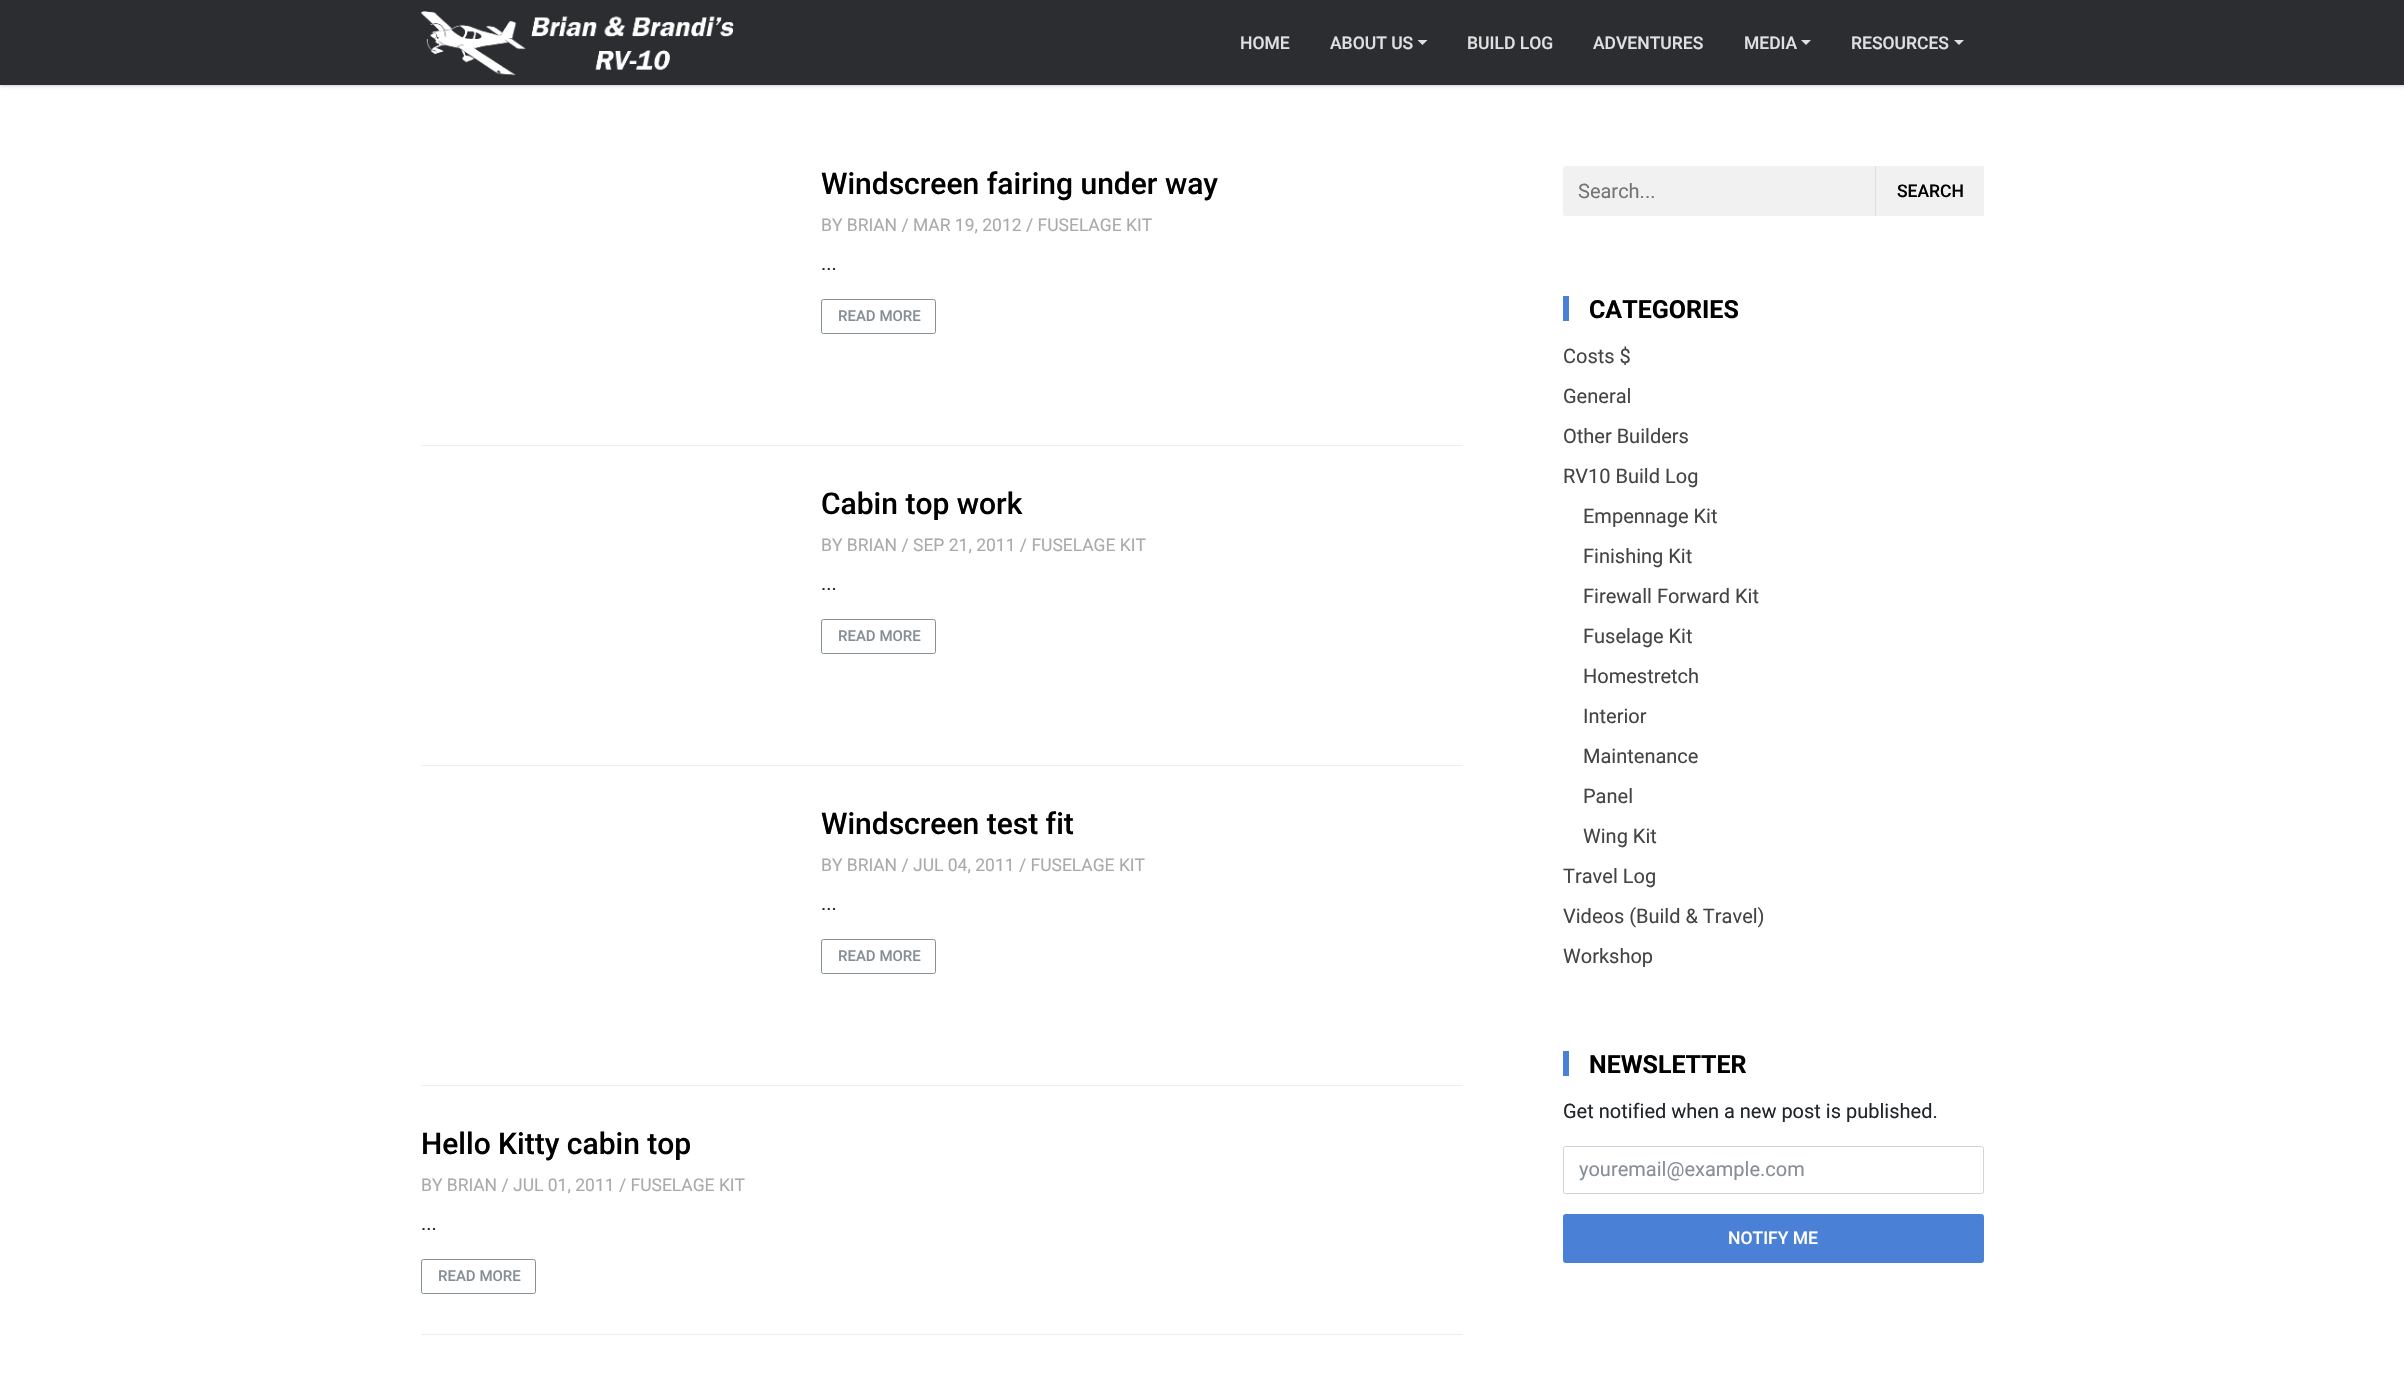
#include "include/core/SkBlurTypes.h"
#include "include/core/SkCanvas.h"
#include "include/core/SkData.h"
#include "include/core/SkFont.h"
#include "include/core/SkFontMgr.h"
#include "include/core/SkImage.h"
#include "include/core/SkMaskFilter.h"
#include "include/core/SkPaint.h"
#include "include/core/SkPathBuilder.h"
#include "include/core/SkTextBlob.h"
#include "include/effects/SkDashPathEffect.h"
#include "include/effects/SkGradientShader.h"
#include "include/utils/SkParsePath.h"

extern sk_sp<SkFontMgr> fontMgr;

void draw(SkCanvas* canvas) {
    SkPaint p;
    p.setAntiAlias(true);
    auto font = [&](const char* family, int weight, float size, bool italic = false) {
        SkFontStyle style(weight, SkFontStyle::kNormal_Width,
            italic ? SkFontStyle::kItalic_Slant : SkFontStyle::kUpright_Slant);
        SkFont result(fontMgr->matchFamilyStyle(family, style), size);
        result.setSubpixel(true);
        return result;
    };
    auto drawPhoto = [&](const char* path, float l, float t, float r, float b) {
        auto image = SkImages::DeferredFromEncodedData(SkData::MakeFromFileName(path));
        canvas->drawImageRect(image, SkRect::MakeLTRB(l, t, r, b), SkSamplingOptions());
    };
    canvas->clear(0xFFFFFFFF);
    p.setColor(0x4D000000);
    p.setMaskFilter(SkMaskFilter::MakeBlur(kNormal_SkBlurStyle, 2));
    canvas->drawRect(SkRect::MakeLTRB(0, 0, 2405, 85), p);
    p.setMaskFilter(nullptr);
    p.setColor(0xFF2C2D31);
    canvas->drawRect(SkRect::MakeLTRB(0, 0, 2404, 85), p);
    drawPhoto("media/1.png", 421, 11, 734, 76);
    auto font1 = font("Roboto", 500, 17.5f);
    p.setColor(0xFFDFE0E0);
    canvas->drawString("HOME", 1240, 49, font1, p);
    canvas->drawString("ABOUT US", 1330, 49, font1, p);
    canvas->drawPath(SkPathBuilder().moveTo(1417.5f, 40).lineTo(1427.5f, 40).lineTo(1422.5f, 45).close().detach(), p);
    {
        const struct { const char* s; float x, y; } items[] = {
            {"BUILD LOG", 1467, 49},
            {"ADVENTURES", 1593, 49},
            {"MEDIA", 1744, 49},
        };
        for (auto [s, x, y] : items) {
            canvas->drawString(s, x, y, font1, p);
        }
    }
    canvas->drawPath(SkPathBuilder().moveTo(1801, 40).lineTo(1811, 40).lineTo(1806, 45).close().detach(), p);
    canvas->drawString("RESOURCES", 1851, 49, font1, p);
    canvas->drawPath(SkPathBuilder().moveTo(1954, 40).lineTo(1964, 40).lineTo(1959, 45).close().detach(), p);
    p.setColor(0xFFEEEEEE);
    canvas->drawRect(SkRect::MakeLTRB(421, 445, 1463, 446), p);
    auto font2 = font("Roboto", 500, 30);
    p.setColor(0xFF000000);
    canvas->drawString("Windscreen fairing under way", 821, 194, font2, p);
    auto font3 = font("Roboto", 400, 17.5f);
    p.setColor(0xFFAAAAAA);
    canvas->drawString("BY BRIAN / MAR 19, 2012 / FUSELAGE KIT", 821, 231, font3, p);
    auto font4 = font("Roboto", 400, 20);
    p.setColor(0xFF212529);
    canvas->drawString("...", 821, 270, font4, p);
    p.setStyle(SkPaint::kStroke_Style);
    p.setStrokeWidth(1);
    p.setColor(0xFF868E96);
    canvas->drawRoundRect(SkRect::MakeLTRB(821.5f, 299.5f, 935.5f, 333.5f), 2, 2, p);
    auto font5 = font("Roboto", 500, 15);
    p.setStyle(SkPaint::kFill_Style);
    canvas->drawString("READ MORE", 838, 321, font5, p);
    p.setColor(0xFFEEEEEE);
    canvas->drawRect(SkRect::MakeLTRB(421, 765, 1463, 766), p);
    p.setColor(0xFF000000);
    canvas->drawString("Cabin top work", 821, 514, font2, p);
    p.setColor(0xFFAAAAAA);
    canvas->drawString("BY BRIAN / SEP 21, 2011 / FUSELAGE KIT", 821, 551, font3, p);
    p.setColor(0xFF212529);
    canvas->drawString("...", 821, 590, font4, p);
    p.setStyle(SkPaint::kStroke_Style);
    p.setColor(0xFF868E96);
    canvas->drawRoundRect(SkRect::MakeLTRB(821.5f, 619.5f, 935.5f, 653.5f), 2, 2, p);
    p.setStyle(SkPaint::kFill_Style);
    canvas->drawString("READ MORE", 838, 641, font5, p);
    p.setColor(0xFFEEEEEE);
    canvas->drawRect(SkRect::MakeLTRB(421, 1085, 1463, 1086), p);
    p.setColor(0xFF000000);
    canvas->drawString("Windscreen test fit", 821, 834, font2, p);
    p.setColor(0xFFAAAAAA);
    canvas->drawString("BY BRIAN / JUL 04, 2011 / FUSELAGE KIT", 821, 871, font3, p);
    p.setColor(0xFF212529);
    canvas->drawString("...", 821, 910, font4, p);
    p.setStyle(SkPaint::kStroke_Style);
    p.setColor(0xFF868E96);
    canvas->drawRoundRect(SkRect::MakeLTRB(821.5f, 939.5f, 935.5f, 973.5f), 2, 2, p);
    p.setStyle(SkPaint::kFill_Style);
    canvas->drawString("READ MORE", 838, 961, font5, p);
    p.setColor(0xFFEEEEEE);
    canvas->drawRect(SkRect::MakeLTRB(421, 1334, 1463, 1335), p);
    p.setColor(0xFF000000);
    canvas->drawString("Hello Kitty cabin top", 421, 1154, font2, p);
    p.setColor(0xFFAAAAAA);
    canvas->drawString("BY BRIAN / JUL 01, 2011 / FUSELAGE KIT", 421, 1191, font3, p);
    p.setColor(0xFF212529);
    canvas->drawString("...", 421, 1230, font4, p);
    p.setStyle(SkPaint::kStroke_Style);
    p.setColor(0xFF868E96);
    canvas->drawRoundRect(SkRect::MakeLTRB(421.5f, 1259.5f, 535.5f, 1293.5f), 2, 2, p);
    p.setStyle(SkPaint::kFill_Style);
    canvas->drawString("READ MORE", 438, 1281, font5, p);
    p.setColor(0xFFF1F1F1);
    canvas->drawRoundRect(SkRect::MakeLTRB(1563, 166, 1984, 216), 2.5f, 2.5f, p);
    p.setColor(0xFF757575);
    canvas->drawString("Search...", 1578, 198, font4, p);
    p.setColor(0xFFF1F1F1);
    canvas->drawPath(SkPathBuilder().moveTo(1875, 166).lineTo(1981.5f, 166).cubicTo(1983, 166, 1984, 167, 1984, 168.5f).lineTo(1984, 213.5f).cubicTo(1984, 215, 1983, 216, 1981.5f, 216).lineTo(1875, 216).close().detach(), p);
    p.setColor(0xFFDDDDDD);
    canvas->drawRect(SkRect::MakeLTRB(1875, 166, 1876, 216), p);
    p.setColor(0xFF000000);
    canvas->drawString("SEARCH", 1897, 197, font1, p);
    p.setColor(0xFF4A81D7);
    canvas->drawRect(SkRect::MakeLTRB(1563, 296, 1569, 321), p);
    auto font6 = font("Roboto", 700, 25);
    p.setColor(0xFF000000);
    canvas->drawString("CATEGORIES", 1589, 318, font6, p);
    p.setColor(0xFF444444);
    {
        const struct { const char* s; float x, y; } items[] = {
            {"Costs $", 1563, 363},
            {"General", 1563, 403},
            {"Other Builders", 1563, 443},
            {"RV10 Build Log", 1563, 483},
            {"Empennage Kit", 1583, 523},
            {"Finishing Kit", 1583, 563},
            {"Firewall Forward Kit", 1583, 603},
            {"Fuselage Kit", 1583, 643},
            {"Homestretch", 1583, 683},
            {"Interior", 1583, 723},
            {"Maintenance", 1583, 763},
            {"Panel", 1583, 803},
            {"Wing Kit", 1583, 843},
            {"Travel Log", 1563, 883},
            {"Videos (Build & Travel)", 1563, 923},
            {"Workshop", 1563, 963},
        };
        for (auto [s, x, y] : items) {
            canvas->drawString(s, x, y, font4, p);
        }
    }
    p.setColor(0xFF4A81D7);
    canvas->drawRect(SkRect::MakeLTRB(1563, 1051, 1569, 1076), p);
    p.setColor(0xFF000000);
    canvas->drawString("NEWSLETTER", 1589, 1073, font6, p);
    p.setColor(0xFF212529);
    canvas->drawString("Get notified when a new post is published.", 1563, 1118, font4, p);
    p.setStyle(SkPaint::kStroke_Style);
    p.setColor(0xFFCED4DA);
    canvas->drawRoundRect(SkRect::MakeLTRB(1563.5f, 1146.5f, 1983.5f, 1193.5f), 2, 2, p);
    p.setStyle(SkPaint::kFill_Style);
    p.setColor(0xFF868E96);
    canvas->drawString("youremail@example.com", 1579, 1176, font4, p);
    p.setColor(0xFF4A81D7);
    canvas->drawRoundRect(SkRect::MakeLTRB(1563.5f, 1214.5f, 1983.5f, 1262.5f), 2, 2, p);
    p.setStyle(SkPaint::kStroke_Style);
    canvas->drawRoundRect(SkRect::MakeLTRB(1563.5f, 1214.5f, 1983.5f, 1262.5f), 2, 2, p);
    p.setStyle(SkPaint::kFill_Style);
    p.setColor(0xFFFFFFFF);
    canvas->drawString("NOTIFY ME", 1728, 1244, font1, p);
}
